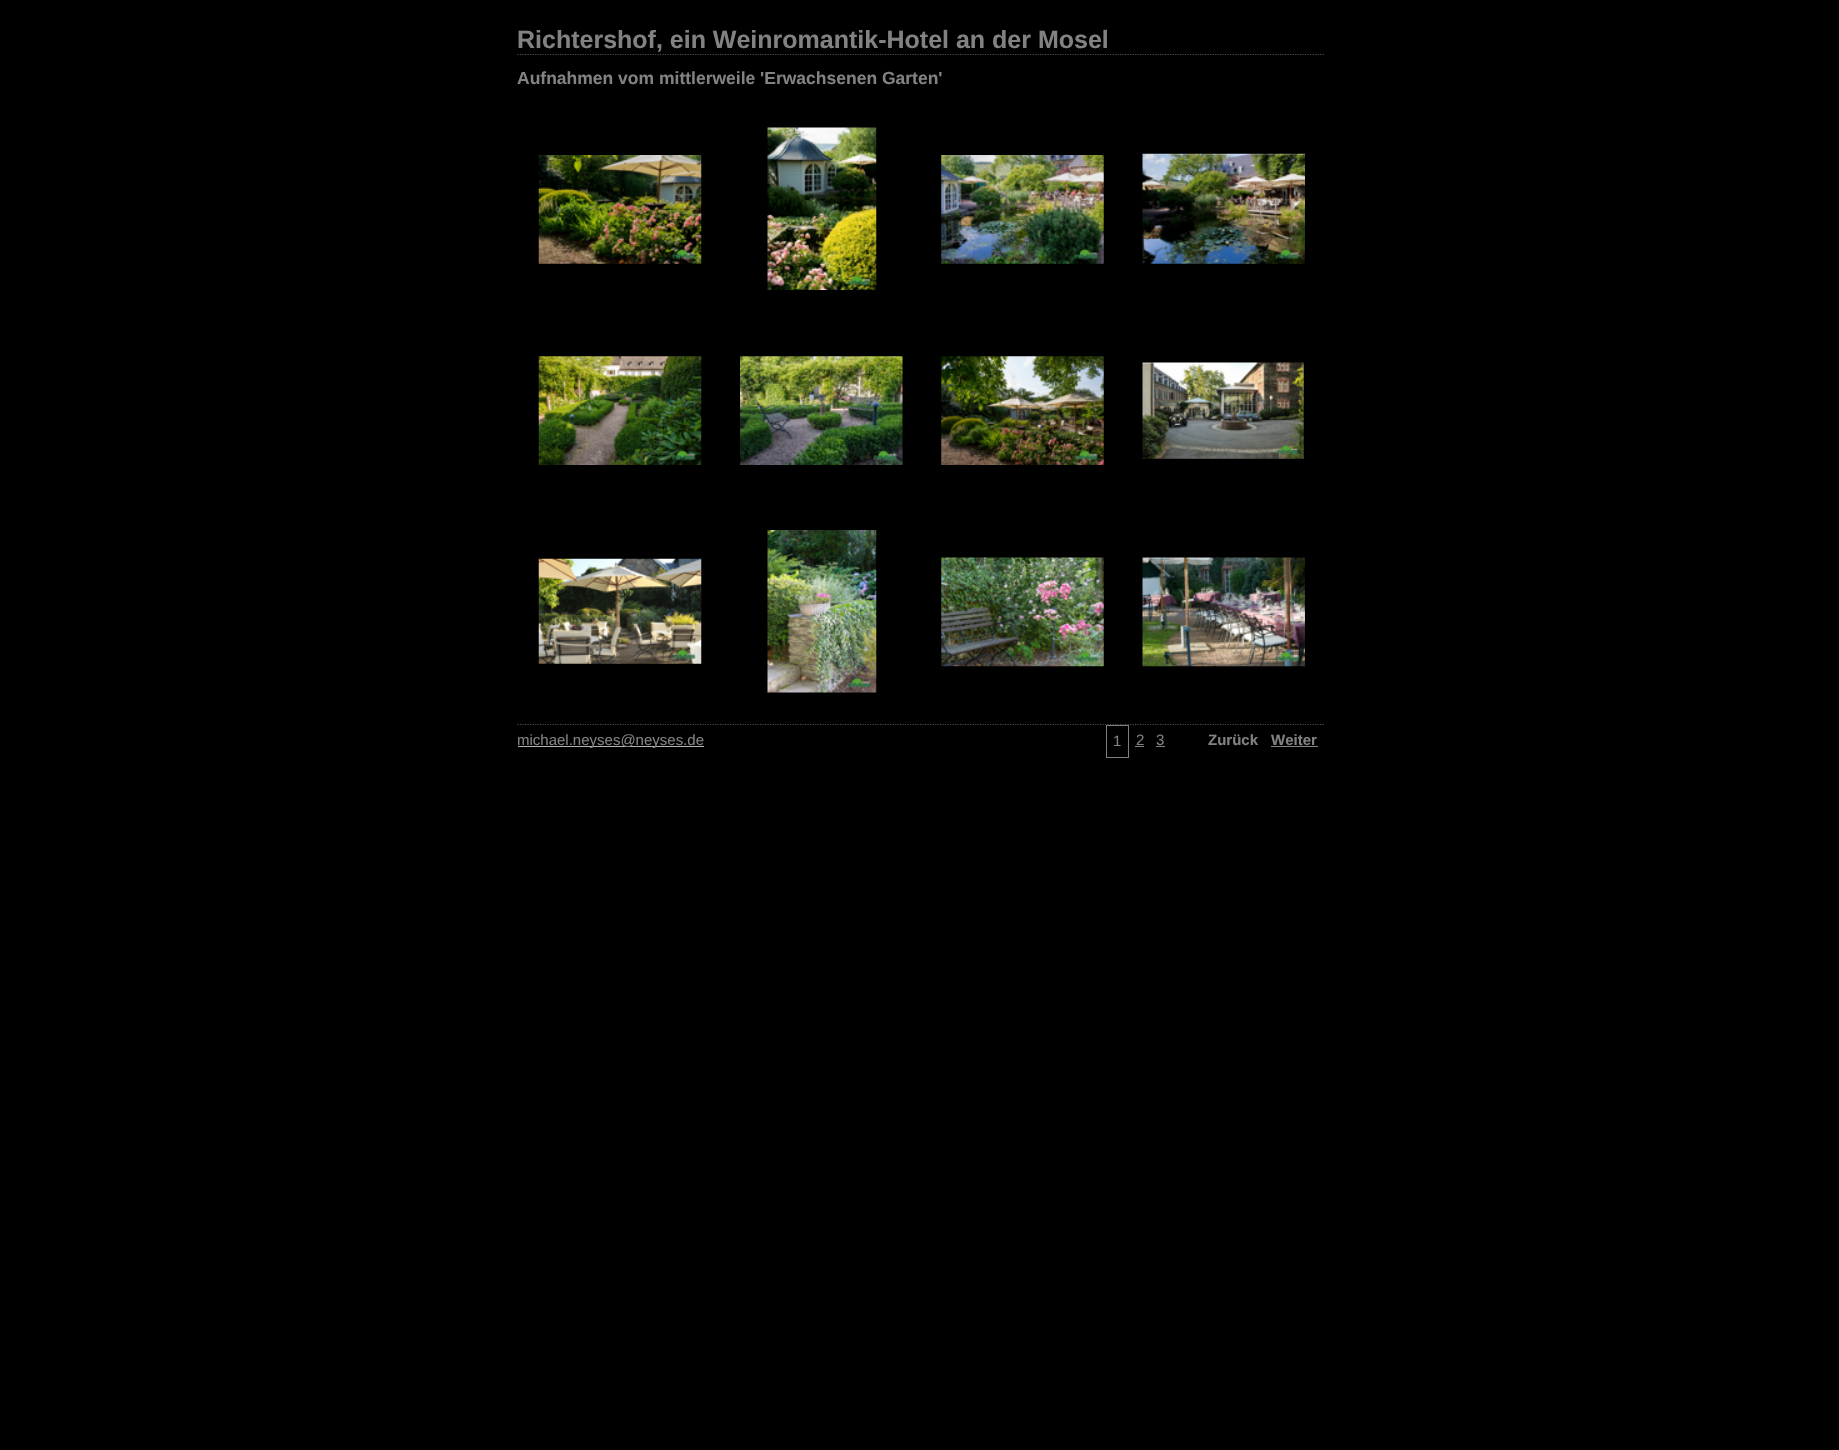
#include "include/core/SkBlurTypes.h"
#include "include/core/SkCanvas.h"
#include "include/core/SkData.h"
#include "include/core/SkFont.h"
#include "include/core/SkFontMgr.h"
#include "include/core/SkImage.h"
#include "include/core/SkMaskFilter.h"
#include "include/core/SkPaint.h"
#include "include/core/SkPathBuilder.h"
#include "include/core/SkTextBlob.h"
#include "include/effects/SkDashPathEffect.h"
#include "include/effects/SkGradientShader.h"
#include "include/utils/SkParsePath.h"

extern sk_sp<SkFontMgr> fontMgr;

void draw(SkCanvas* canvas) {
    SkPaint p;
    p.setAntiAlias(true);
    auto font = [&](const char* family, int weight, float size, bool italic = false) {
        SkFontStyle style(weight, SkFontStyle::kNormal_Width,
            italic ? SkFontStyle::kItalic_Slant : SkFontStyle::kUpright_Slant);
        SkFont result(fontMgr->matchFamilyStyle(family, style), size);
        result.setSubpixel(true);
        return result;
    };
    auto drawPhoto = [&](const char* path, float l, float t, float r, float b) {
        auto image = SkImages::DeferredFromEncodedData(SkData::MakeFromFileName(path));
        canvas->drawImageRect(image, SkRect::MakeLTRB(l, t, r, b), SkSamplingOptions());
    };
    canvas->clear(0xFF000000);
    p.setStyle(SkPaint::kStroke_Style);
    p.setStrokeWidth(1.2f);
    p.setColor(0xFF4C4C4C);
    p.setPathEffect(SkDashPathEffect::Make({{1.25f, 1.25f}}, 0));
    canvas->drawPath(SkPathBuilder().moveTo(517.5f, 54.5f).lineTo(1324, 54.5f).detach(), p);
    p.setPathEffect(nullptr);
    auto font1 = font("Liberation Sans", 700, 25);
    p.setStyle(SkPaint::kFill_Style);
    p.setColor(0xFF828282);
    canvas->drawString("Richtershof, ein Weinromantik-Hotel an der Mosel", 517, 48, font1, p);
    auto font2 = font("Liberation Sans", 700, 17.5f);
    canvas->drawString("Aufnahmen vom mittlerweile 'Erwachsenen Garten'", 517, 84, font2, p);
    p.setStyle(SkPaint::kStroke_Style);
    p.setStrokeWidth(1);
    p.setColor(0xFF7F7F7F);
    canvas->drawRect(SkRect::MakeLTRB(1106.5f, 725.5f, 1128.5f, 757.5f), p);
    p.setStrokeWidth(1.2f);
    p.setColor(0xFF4C4C4C);
    p.setPathEffect(SkDashPathEffect::Make({{1.25f, 1.25f}}, 0));
    canvas->drawPath(SkPathBuilder().moveTo(517.5f, 724.5f).lineTo(1324, 724.5f).detach(), p);
    p.setPathEffect(nullptr);
    drawPhoto("media/1.png", 538, 155, 702, 264);
    drawPhoto("media/2.png", 767, 127, 877, 290);
    drawPhoto("media/3.png", 941, 155, 1104, 264);
    drawPhoto("media/4.png", 1142, 153, 1305, 264);
    drawPhoto("media/5.png", 538, 356, 702, 465);
    drawPhoto("media/6.png", 740, 356, 903, 465);
    drawPhoto("media/7.png", 941, 356, 1104, 465);
    drawPhoto("media/8.png", 1142, 362, 1304, 459);
    drawPhoto("media/9.png", 538, 558, 702, 664);
    drawPhoto("media/10.png", 767, 530, 877, 693);
    drawPhoto("media/11.png", 941, 557, 1104, 667);
    drawPhoto("media/12.png", 1142, 557, 1305, 667);
    p.setStyle(SkPaint::kFill_Style);
    p.setColor(0xFFB3B3B3);
    canvas->drawRect(SkRect::MakeLTRB(518, 746, 704, 747), p);
    auto font3 = font("Liberation Sans", 400, 15);
    p.setColor(0xFF828282);
    {
        const struct { const char* s; float x, y; } items[] = {
            {"michael.neyses@neyses.de", 517, 745},
            {"1", 1113, 746},
            {"2", 1136, 745},
        };
        for (auto [s, x, y] : items) {
            canvas->drawString(s, x, y, font3, p);
        }
    }
    canvas->drawRect(SkRect::MakeLTRB(1135, 746, 1144, 747), p);
    canvas->drawString("3", 1156, 745, font3, p);
    canvas->drawRect(SkRect::MakeLTRB(1156, 746, 1165, 747), p);
    auto font4 = font("Liberation Sans", 700, 15);
    canvas->drawString("Zurück", 1208, 745, font4, p);
    canvas->drawString("Weiter", 1271, 745, font4, p);
    canvas->drawRect(SkRect::MakeLTRB(1271, 746, 1318, 747), p);
}
